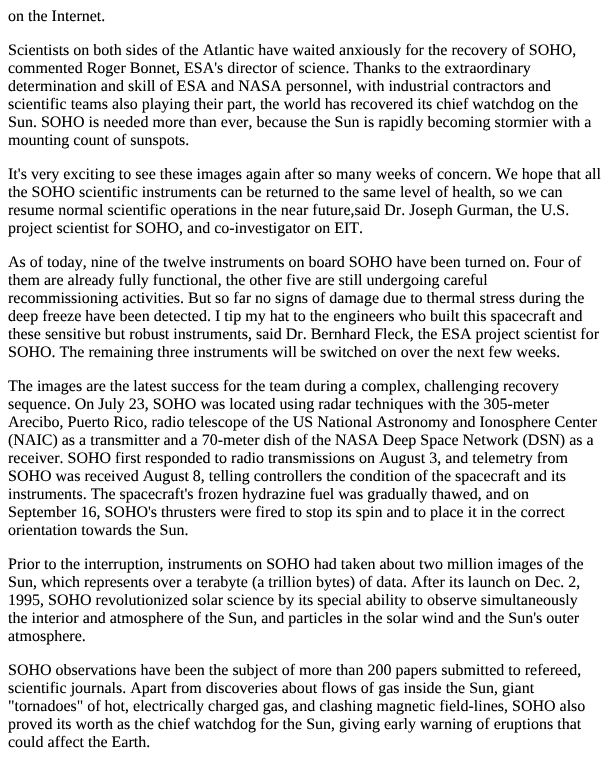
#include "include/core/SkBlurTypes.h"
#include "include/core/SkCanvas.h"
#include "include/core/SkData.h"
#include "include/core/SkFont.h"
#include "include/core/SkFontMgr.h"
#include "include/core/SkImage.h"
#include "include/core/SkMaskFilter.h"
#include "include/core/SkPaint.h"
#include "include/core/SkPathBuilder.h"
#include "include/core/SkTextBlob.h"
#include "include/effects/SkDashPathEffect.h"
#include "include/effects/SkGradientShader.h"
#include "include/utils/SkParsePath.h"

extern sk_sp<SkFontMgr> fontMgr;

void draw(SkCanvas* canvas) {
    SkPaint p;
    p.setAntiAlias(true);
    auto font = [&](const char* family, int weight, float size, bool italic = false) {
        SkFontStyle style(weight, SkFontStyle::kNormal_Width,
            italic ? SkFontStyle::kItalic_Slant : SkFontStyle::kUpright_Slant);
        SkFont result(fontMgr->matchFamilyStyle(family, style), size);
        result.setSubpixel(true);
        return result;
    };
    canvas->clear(0xFFFFFFFF);
    auto font1 = font("Liberation Serif", 400, 16);
    p.setColor(0xFF000000);
    {
        const struct { const char* s; float x, y; } items[] = {
            {"on the Internet.", 8, 21},
            {"Scientists on both sides of the Atlantic have waited anxiously for the recovery of SOHO,", 8, 55},
            {"commented Roger Bonnet, ESA's director of science. Thanks to the extraordinary", 8, 73},
            {"determination and skill of ESA and NASA personnel, with industrial contractors and", 8, 91},
            {"scientific teams also playing their part, the world has recovered its chief watchdog on the", 8, 109},
            {"Sun. SOHO is needed more than ever, because the Sun is rapidly becoming stormier with a", 8, 127},
            {"mounting count of sunspots.", 8, 145},
            {"It's very exciting to see these images again after so many weeks of concern. We hope that all", 8, 179},
            {"the SOHO scientific instruments can be returned to the same level of health, so we can", 8, 197},
            {"resume normal scientific operations in the near future,said Dr. Joseph Gurman, the U.S.", 8, 215},
            {"project scientist for SOHO, and co-investigator on EIT.", 8, 233},
            {"As of today, nine of the twelve instruments on board SOHO have been turned on. Four of", 8, 267},
            {"them are already fully functional, the other five are still undergoing careful", 8, 285},
            {"recommissioning activities. But so far no signs of damage due to thermal stress during the", 8, 303},
            {"deep freeze have been detected. I tip my hat to the engineers who built this spacecraft and", 8, 321},
            {"these sensitive but robust instruments, said Dr. Bernhard Fleck, the ESA project scientist for", 8, 339},
            {"SOHO. The remaining three instruments will be switched on over the next few weeks.", 8, 357},
            {"The images are the latest success for the team during a complex, challenging recovery", 8, 391},
            {"sequence. On July 23, SOHO was located using radar techniques with the 305-meter", 8, 409},
            {"Arecibo, Puerto Rico, radio telescope of the US National Astronomy and Ionosphere Center", 8, 427},
            {"(NAIC) as a transmitter and a 70-meter dish of the NASA Deep Space Network (DSN) as a", 8, 445},
            {"receiver. SOHO first responded to radio transmissions on August 3, and telemetry from", 8, 463},
            {"SOHO was received August 8, telling controllers the condition of the spacecraft and its", 8, 481},
            {"instruments. The spacecraft's frozen hydrazine fuel was gradually thawed, and on", 8, 499},
            {"September 16, SOHO's thrusters were fired to stop its spin and to place it in the correct", 8, 517},
            {"orientation towards the Sun.", 8, 535},
            {"Prior to the interruption, instruments on SOHO had taken about two million images of the", 8, 569},
            {"Sun, which represents over a terabyte (a trillion bytes) of data. After its launch on Dec. 2,", 8, 587},
            {"1995, SOHO revolutionized solar science by its special ability to observe simultaneously", 8, 605},
            {"the interior and atmosphere of the Sun, and particles in the solar wind and the Sun's outer", 8, 623},
            {"atmosphere.", 8, 641},
            {"SOHO observations have been the subject of more than 200 papers submitted to refereed,", 8, 675},
            {"scientific journals. Apart from discoveries about flows of gas inside the Sun, giant", 8, 693},
            {"\"tornadoes\" of hot, electrically charged gas, and clashing magnetic field-lines, SOHO also", 8, 711},
            {"proved its worth as the chief watchdog for the Sun, giving early warning of eruptions that", 8, 729},
            {"could affect the Earth.", 8, 747},
        };
        for (auto [s, x, y] : items) {
            canvas->drawString(s, x, y, font1, p);
        }
    }
}
